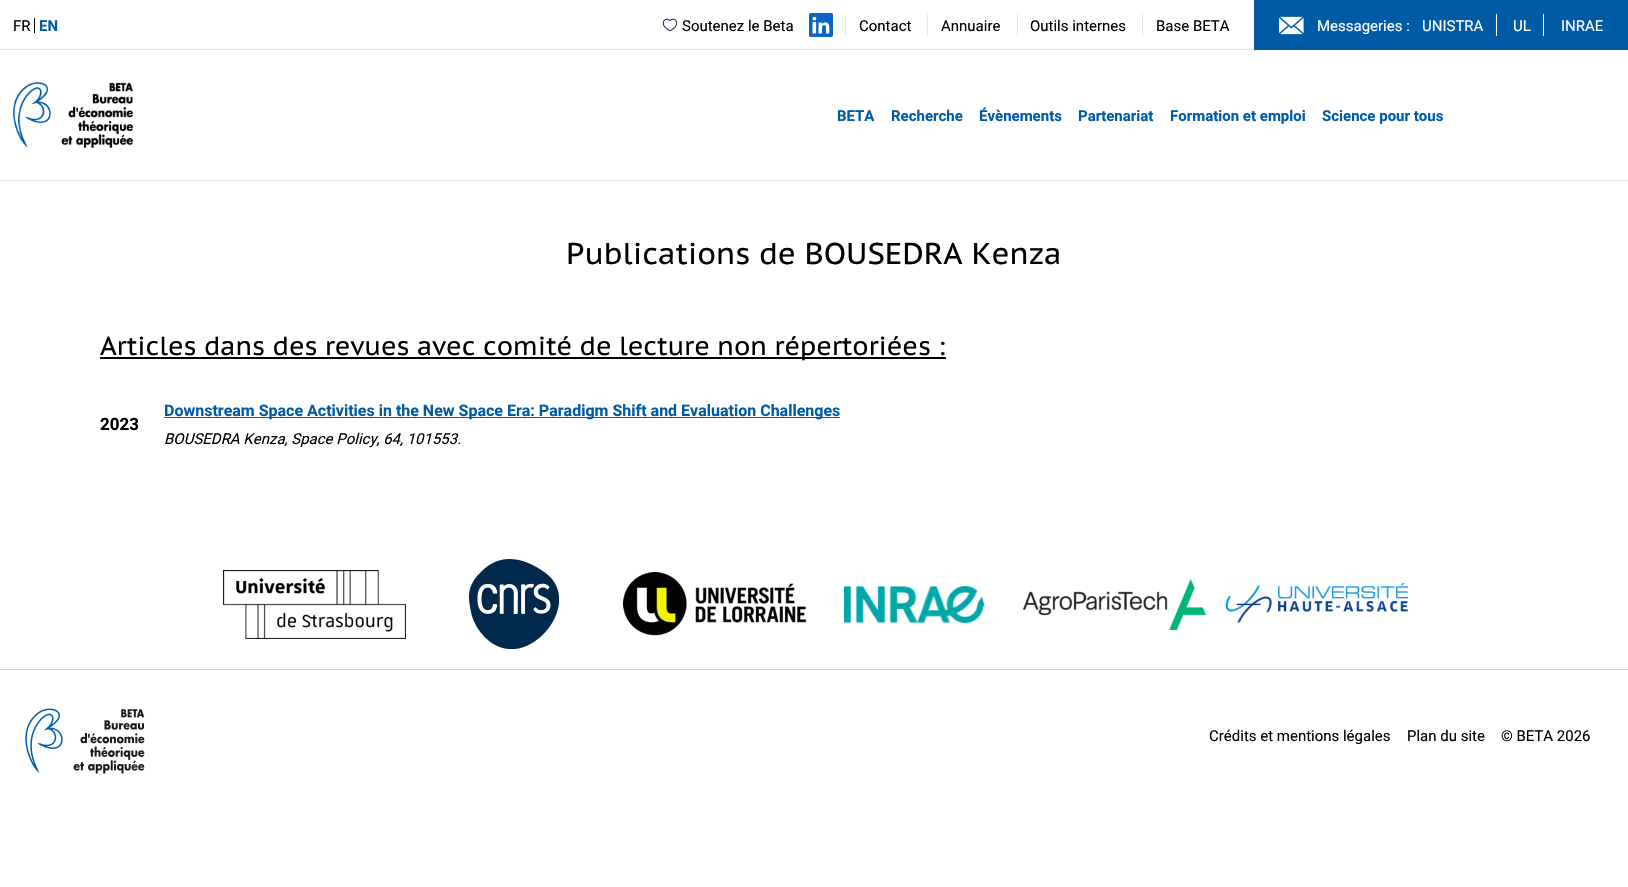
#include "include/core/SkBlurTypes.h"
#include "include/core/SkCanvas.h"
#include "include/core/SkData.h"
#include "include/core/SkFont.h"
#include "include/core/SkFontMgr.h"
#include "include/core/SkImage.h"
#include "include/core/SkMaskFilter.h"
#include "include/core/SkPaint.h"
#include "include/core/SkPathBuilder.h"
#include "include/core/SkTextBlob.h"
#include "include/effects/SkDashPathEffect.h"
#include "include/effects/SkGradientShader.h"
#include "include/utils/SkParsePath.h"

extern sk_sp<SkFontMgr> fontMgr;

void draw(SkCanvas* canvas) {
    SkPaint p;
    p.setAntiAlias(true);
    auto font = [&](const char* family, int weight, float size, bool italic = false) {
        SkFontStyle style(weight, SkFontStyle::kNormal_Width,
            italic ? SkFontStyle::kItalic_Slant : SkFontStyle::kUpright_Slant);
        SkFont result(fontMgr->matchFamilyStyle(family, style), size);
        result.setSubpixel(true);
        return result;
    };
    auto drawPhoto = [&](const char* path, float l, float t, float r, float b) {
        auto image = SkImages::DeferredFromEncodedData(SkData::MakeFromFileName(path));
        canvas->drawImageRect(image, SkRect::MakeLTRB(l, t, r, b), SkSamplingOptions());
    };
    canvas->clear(0xFFFFFFFF);
    {
        const struct { float l, t, r, b; SkColor color; } items[] = {
            {0, 180, 1628, 181, 0xFFE5E7EB},
            {0, 49, 1254, 50, 0xFFE5E7EB},
            {34, 18, 35, 33, 0xFF000000},
        };
        for (auto [l, t, r, b, color] : items) {
            p.setColor(color);
            canvas->drawRect(SkRect::MakeLTRB(l, t, r, b), p);
        }
    }
    auto font1 = font("Roboto", 400, 15);
    canvas->drawString("FR", 13, 31, font1, p);
    auto font2 = font("Roboto", 700, 15);
    p.setColor(0xFF005BA7);
    canvas->drawString("EN", 39, 31, font2, p);
    drawPhoto("media/1.png", 662, 18, 678, 32);
    p.setColor(0xFF000000);
    canvas->drawString("Soutenez le Beta", 682, 31, font1, p);
    drawPhoto("media/2.png", 809, 13, 833, 37);
    p.setColor(0xFFE5E7EB);
    canvas->drawRect(SkRect::MakeLTRB(845, 14, 846, 36), p);
    p.setColor(0xFF000000);
    canvas->drawString("Contact", 859, 31, font1, p);
    p.setColor(0xFFE5E7EB);
    canvas->drawRect(SkRect::MakeLTRB(927, 14, 928, 36), p);
    p.setColor(0xFF000000);
    canvas->drawString("Annuaire", 941, 31, font1, p);
    p.setColor(0xFFE5E7EB);
    canvas->drawRect(SkRect::MakeLTRB(1017, 14, 1018, 36), p);
    p.setColor(0xFF000000);
    canvas->drawString("Outils internes", 1030, 31, font1, p);
    p.setColor(0xFFE5E7EB);
    canvas->drawRect(SkRect::MakeLTRB(1142, 14, 1143, 36), p);
    p.setColor(0xFF000000);
    canvas->drawString("Base BETA", 1156, 31, font1, p);
    p.setColor(0xFF005BA7);
    canvas->drawRect(SkRect::MakeLTRB(1254, 0, 1628, 50), p);
    drawPhoto("media/3.png", 1279, 16, 1304, 35);
    p.setColor(0xFFFFFFFF);
    canvas->drawString("Messageries :", 1317, 31, font1, p);
    canvas->drawRect(SkRect::MakeLTRB(1496, 14, 1497, 36), p);
    canvas->drawString("UNISTRA", 1422, 31, font1, p);
    canvas->drawRect(SkRect::MakeLTRB(1543, 14, 1544, 36), p);
    canvas->drawString("UL", 1513, 31, font1, p);
    canvas->drawString("INRAE", 1561, 31, font1, p);
    drawPhoto("media/4.png", 13, 82, 133, 148);
    p.setColor(0xFF005BA7);
    {
        const struct { const char* s; float x, y; } items[] = {
            {"BETA", 837, 121},
            {"Recherche", 891, 121},
            {"Évènements", 979, 121},
            {"Partenariat", 1078, 121},
            {"Formation et emploi", 1170, 121},
            {"Science pour tous", 1322, 121},
        };
        for (auto [s, x, y] : items) {
            canvas->drawString(s, x, y, font2, p);
        }
    }
    auto font3 = font("PT Sans Caption", 400, 30);
    p.setColor(0xFF000000);
    canvas->drawString("Publications de BOUSEDRA Kenza", 566, 264, font3, p);
    canvas->drawRect(SkRect::MakeLTRB(100, 357, 946, 359), p);
    auto font4 = font("PT Sans Caption", 400, 26);
    canvas->drawString("Articles dans des revues avec comité de lecture non répertoriées :", 100, 355, font4, p);
    auto font5 = font("Roboto", 700, 17);
    canvas->drawString("2023", 100, 430, font5, p);
    p.setColor(0xFF005BA7);
    canvas->drawRect(SkRect::MakeLTRB(164, 417, 840, 418), p);
    auto font6 = font("Roboto", 700, 16);
    canvas->drawString("Downstream Space Activities in the New Space Era: Paradigm Shift and Evaluation Challenges", 164, 416, font6, p);
    auto font7 = font("Roboto", 400, 15, true);
    p.setColor(0xFF000000);
    canvas->drawString("BOUSEDRA Kenza, Space Policy, 64, 101553.", 164, 444, font7, p);
    drawPhoto("media/5.png", 223, 570, 406, 639);
    drawPhoto("media/6.png", 469, 559, 559, 649);
    drawPhoto("media/7.png", 623, 572, 806, 636);
    drawPhoto("media/8.png", 844, 586, 985, 623);
    drawPhoto("media/9.png", 1023, 579, 1206, 630);
    drawPhoto("media/10.png", 1225, 582, 1409, 623);
    p.setColor(0xFFD1D5DB);
    canvas->drawRect(SkRect::MakeLTRB(0, 669, 1628, 670), p);
    drawPhoto("media/11.png", 25, 708, 145, 774);
    p.setColor(0xFF000000);
    {
        const struct { const char* s; float x, y; } items[] = {
            {"Crédits et mentions légales", 1209, 741},
            {"Plan du site", 1407, 741},
            {"© BETA 2026", 1501, 741},
        };
        for (auto [s, x, y] : items) {
            canvas->drawString(s, x, y, font1, p);
        }
    }
}
